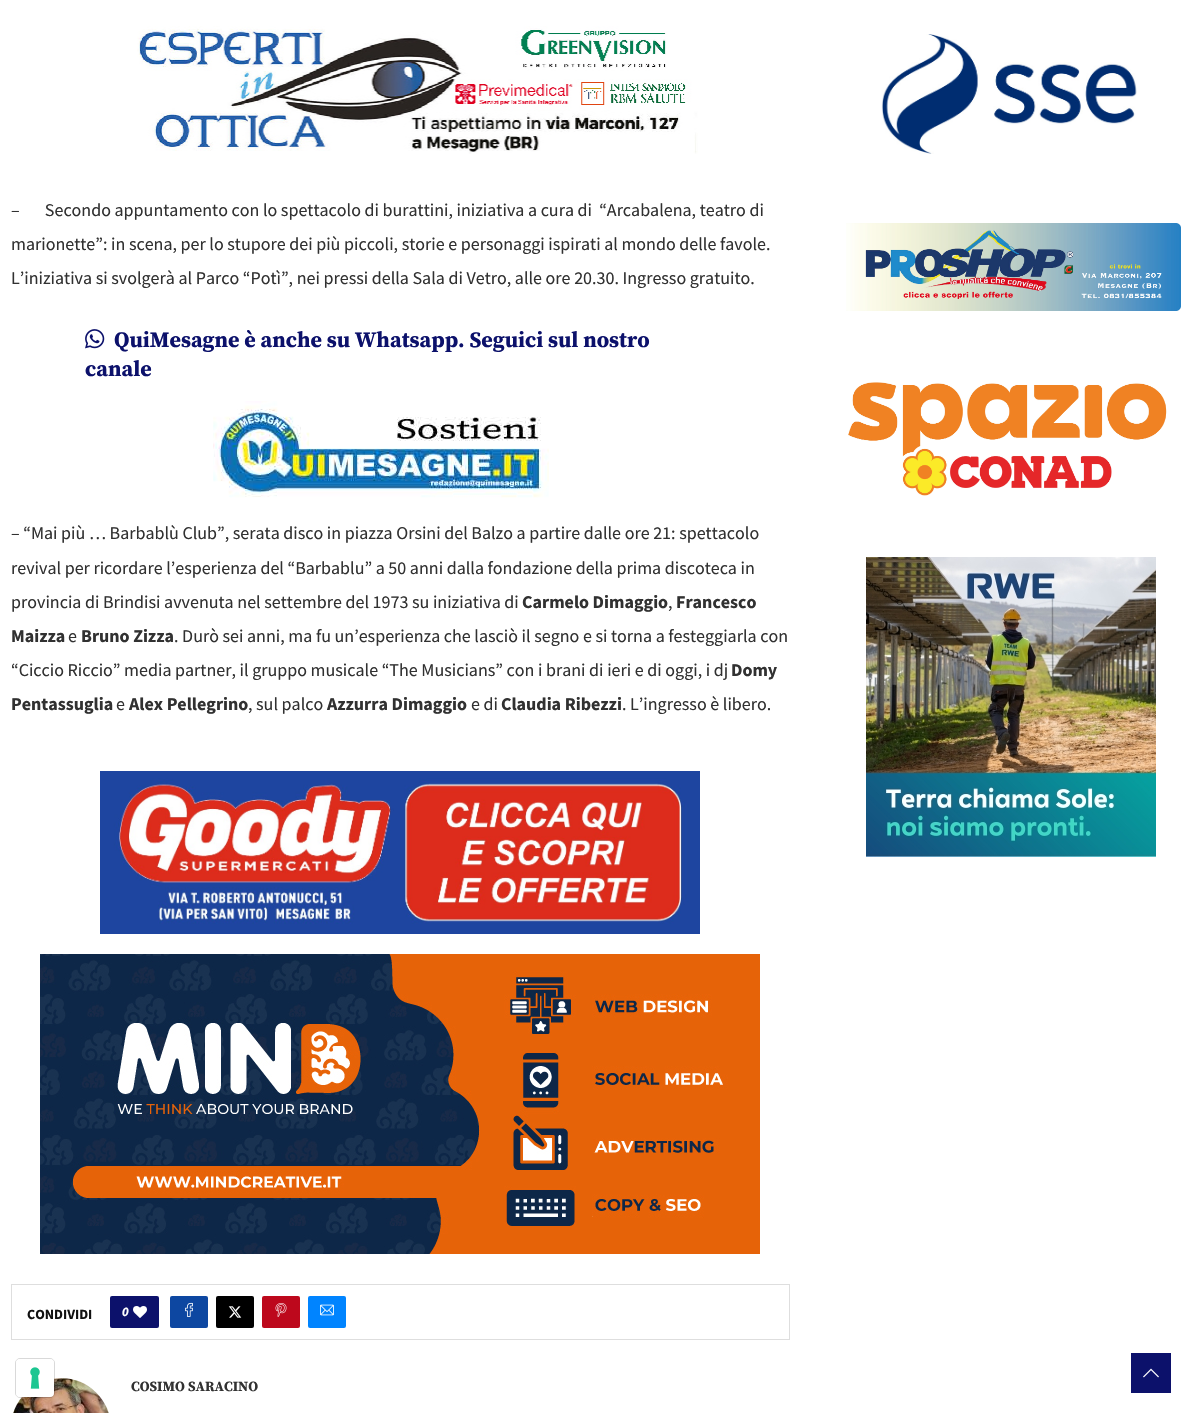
#include "include/core/SkBlurTypes.h"
#include "include/core/SkCanvas.h"
#include "include/core/SkData.h"
#include "include/core/SkFont.h"
#include "include/core/SkFontMgr.h"
#include "include/core/SkImage.h"
#include "include/core/SkMaskFilter.h"
#include "include/core/SkPaint.h"
#include "include/core/SkPathBuilder.h"
#include "include/core/SkTextBlob.h"
#include "include/effects/SkDashPathEffect.h"
#include "include/effects/SkGradientShader.h"
#include "include/utils/SkParsePath.h"

extern sk_sp<SkFontMgr> fontMgr;

void draw(SkCanvas* canvas) {
    SkPaint p;
    p.setAntiAlias(true);
    auto font = [&](const char* family, int weight, float size, bool italic = false) {
        SkFontStyle style(weight, SkFontStyle::kNormal_Width,
            italic ? SkFontStyle::kItalic_Slant : SkFontStyle::kUpright_Slant);
        SkFont result(fontMgr->matchFamilyStyle(family, style), size);
        result.setSubpixel(true);
        return result;
    };
    auto drawPhoto = [&](const char* path, float l, float t, float r, float b) {
        auto image = SkImages::DeferredFromEncodedData(SkData::MakeFromFileName(path));
        canvas->drawImageRect(image, SkRect::MakeLTRB(l, t, r, b), SkSamplingOptions());
    };
    canvas->clear(0xFFFFFFFF);
    drawPhoto("media/1.png", 137, 26, 698, 154);
    auto font1 = font("Source Sans Pro", 400, 18);
    p.setColor(0xFF313131);
    {
        const struct { const char* s; float x, y; } items[] = {
            {"–       Secondo appuntamento con lo spettacolo di burattini, iniziativa a cura di  “Arcabalena, teatro di", 11, 216},
            {"marionette”: in scena, per lo stupore dei più piccoli, storie e personaggi ispirati al mondo delle favole.", 11, 250},
            {"L’iniziativa si svolgerà al Parco “Potì”, nei pressi della Sala di Vetro, alle ore 20.30. Ingresso gratuito.", 11, 284},
        };
        for (auto [s, x, y] : items) {
            canvas->drawString(s, x, y, font1, p);
        }
    }
    drawPhoto("media/2.png", 85, 329, 105, 349);
    auto font2 = font("Source Serif Pro", 700, 22);
    p.setColor(0xFF0C116B);
    canvas->drawString("QuiMesagne è anche su Whatsapp. Seguici sul nostro", 114, 347, font2, p);
    canvas->drawString("canale", 85, 376, font2, p);
    drawPhoto("media/3.png", 213, 401, 549, 498);
    p.setColor(0xFF313131);
    {
        const struct { const char* s; float x, y; } items[] = {
            {"– “Mai più … Barbablù Club”, serata disco in piazza Orsini del Balzo a partire dalle ore 21: spettacolo", 11, 539},
            {"revival per ricordare l’esperienza del “Barbablu” a 50 anni dalla fondazione della prima discoteca in", 11, 574},
            {"provincia di Brindisi avvenuta nel settembre del 1973 su iniziativa di", 11, 608},
        };
        for (auto [s, x, y] : items) {
            canvas->drawString(s, x, y, font1, p);
        }
    }
    auto font3 = font("Source Sans Pro", 700, 18);
    canvas->drawString("Carmelo Dimaggio", 522, 608, font3, p);
    canvas->drawString(",", 668, 608, font1, p);
    canvas->drawString("Francesco", 676, 608, font3, p);
    canvas->drawString("Maizza", 11, 642, font3, p);
    canvas->drawString("e", 68, 642, font1, p);
    canvas->drawString("Bruno Zizza", 81, 642, font3, p);
    canvas->drawString(". Durò sei anni, ma fu un’esperienza che lasciò il segno e si torna a festeggiarla con", 174, 642, font1, p);
    canvas->drawString("“Ciccio Riccio” media partner, il gruppo musicale “The Musicians” con i brani di ieri e di oggi, i dj", 11, 676, font1, p);
    canvas->drawString("Domy", 731, 676, font3, p);
    canvas->drawString("Pentassuglia", 11, 710, font3, p);
    canvas->drawString("e", 116, 710, font1, p);
    canvas->drawString("Alex Pellegrino", 129, 710, font3, p);
    canvas->drawString(", sul palco", 248, 710, font1, p);
    canvas->drawString("Azzurra Dimaggio", 327, 710, font3, p);
    canvas->drawString("e di", 471, 710, font1, p);
    canvas->drawString("Claudia Ribezzi", 501, 710, font3, p);
    canvas->drawString(". L’ingresso è libero.", 622, 710, font1, p);
    drawPhoto("media/4.png", 100, 771, 700, 934);
    drawPhoto("media/5.png", 40, 954, 760, 1254);
    p.setStyle(SkPaint::kStroke_Style);
    p.setStrokeWidth(1);
    p.setColor(0xFFDEDEDE);
    canvas->drawRect(SkRect::MakeLTRB(11.5f, 1284.5f, 789.5f, 1339.5f), p);
    auto font4 = font("Source Sans Pro", 700, 14);
    p.setStyle(SkPaint::kFill_Style);
    p.setColor(0xFF111111);
    canvas->drawString("CONDIVIDI", 27, 1319, font4, p);
    p.setColor(0xFF0C116B);
    canvas->drawRoundRect(SkRect::MakeLTRB(110, 1296, 159, 1328), 2, 2, p);
    auto font5 = font("Source Sans Pro", 700, 13, true);
    p.setColor(0xFFFFFFFF);
    canvas->drawString("0", 122, 1316, font5, p);
    drawPhoto("media/6.png", 133, 1306, 147, 1318);
    p.setColor(0xFF0D47A1);
    canvas->drawRoundRect(SkRect::MakeLTRB(170, 1296, 208, 1328), 2, 2, p);
    drawPhoto("media/7.png", 185, 1302, 193, 1317);
    p.setColor(0xFF000000);
    canvas->drawRoundRect(SkRect::MakeLTRB(216, 1296, 254, 1328), 2, 2, p);
    drawPhoto("media/8.png", 228, 1306, 242, 1318);
    p.setColor(0xFFBD081C);
    canvas->drawRoundRect(SkRect::MakeLTRB(262, 1296, 300, 1328), 2, 2, p);
    drawPhoto("media/9.png", 275, 1303, 287, 1317);
    p.setColor(0xFF0084FF);
    canvas->drawRoundRect(SkRect::MakeLTRB(308, 1296, 346, 1328), 2, 2, p);
    drawPhoto("media/10.png", 320, 1304, 334, 1316);
    drawPhoto("media/11.png", 13, 1378, 109, 1413);
    auto font6 = font("Source Serif Pro", 700, 14);
    p.setColor(0xFF313131);
    canvas->drawString("COSIMO SARACINO", 131, 1391, font6, p);
    drawPhoto("media/12.png", 881, 34, 1137, 154);
    drawPhoto("media/13.png", 846, 223, 1181, 311);
    drawPhoto("media/14.png", 848, 382, 1167, 496);
    drawPhoto("media/15.png", 866, 557, 1156, 857);
    p.setColor(0xFF0C116B);
    canvas->drawRect(SkRect::MakeLTRB(1131, 1353, 1171, 1393), p);
    drawPhoto("media/16.png", 1143, 1368, 1159, 1378);
    p.setStyle(SkPaint::kStroke_Style);
    p.setColor(0x26000000);
    canvas->drawRoundRect(SkRect::MakeLTRB(15.5f, 1358.5f, 54.5f, 1397.5f), 4.5f, 4.5f, p);
    p.setStyle(SkPaint::kFill_Style);
    p.setColor(0xFFFFFFFF);
    canvas->drawRoundRect(SkRect::MakeLTRB(16, 1359, 54, 1397), 4, 4, p);
    drawPhoto("media/17.png", 30, 1367, 40, 1389);
}
